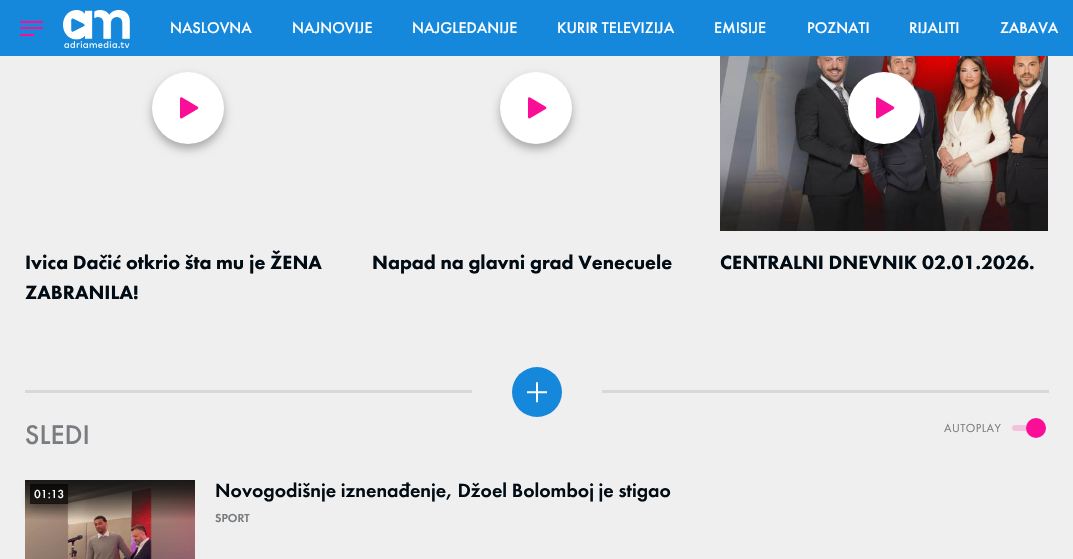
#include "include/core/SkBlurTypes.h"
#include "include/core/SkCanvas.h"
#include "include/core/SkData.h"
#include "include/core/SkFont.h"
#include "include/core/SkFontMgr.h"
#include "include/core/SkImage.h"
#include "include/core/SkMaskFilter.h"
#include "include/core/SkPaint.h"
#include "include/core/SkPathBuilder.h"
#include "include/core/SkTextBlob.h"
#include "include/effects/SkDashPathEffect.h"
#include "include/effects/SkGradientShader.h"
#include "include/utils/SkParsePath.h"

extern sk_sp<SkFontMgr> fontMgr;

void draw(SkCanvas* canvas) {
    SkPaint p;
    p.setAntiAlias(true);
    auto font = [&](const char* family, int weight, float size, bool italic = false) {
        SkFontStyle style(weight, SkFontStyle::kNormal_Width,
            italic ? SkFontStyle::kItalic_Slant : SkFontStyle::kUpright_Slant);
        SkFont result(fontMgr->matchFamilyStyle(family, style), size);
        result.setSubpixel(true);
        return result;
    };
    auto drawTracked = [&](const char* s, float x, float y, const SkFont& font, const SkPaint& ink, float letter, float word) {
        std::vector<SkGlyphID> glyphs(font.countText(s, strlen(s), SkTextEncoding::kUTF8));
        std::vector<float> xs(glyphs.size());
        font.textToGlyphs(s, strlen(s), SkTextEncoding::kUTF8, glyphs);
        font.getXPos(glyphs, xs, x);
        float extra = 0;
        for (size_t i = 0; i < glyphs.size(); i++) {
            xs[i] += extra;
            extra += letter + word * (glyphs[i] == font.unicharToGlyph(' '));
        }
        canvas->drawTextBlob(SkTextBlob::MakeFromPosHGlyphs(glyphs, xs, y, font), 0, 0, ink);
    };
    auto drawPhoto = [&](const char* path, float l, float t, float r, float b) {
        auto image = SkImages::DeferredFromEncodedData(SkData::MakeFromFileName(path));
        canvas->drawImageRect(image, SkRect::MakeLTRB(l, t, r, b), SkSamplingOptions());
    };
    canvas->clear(0xFFF0EFEF);
    {
        const struct { float l, t, r, b; SkColor color; } items[] = {
            {0, 0, 1073, 56, 0xFF1588DC},
            {20, 21, 43, 23, 0xFFFA0D97},
            {20, 27, 43, 29, 0xFFFA0D97},
            {20, 34, 34, 36, 0xFFFA0D97},
        };
        for (auto [l, t, r, b, color] : items) {
            p.setColor(color);
            canvas->drawRect(SkRect::MakeLTRB(l, t, r, b), p);
        }
    }
    drawPhoto("media/1.png", 63, 10, 130, 48);
    auto font1 = font("Futura PT", 500, 16);
    p.setColor(0xFFFFFFFF);
    {
        const struct { const char* s; float x, y; } items[] = {
            {"NASLOVNA", 170, 33},
            {"NAJNOVIJE", 292, 33},
            {"NAJGLEDANIJE", 412, 33},
            {"KURIR TELEVIZIJA", 557, 33},
            {"EMISIJE", 714, 33},
            {"POZNATI", 807, 33},
            {"RIJALITI", 909, 33},
            {"ZABAVA", 1000, 33},
        };
        for (auto [s, x, y] : items) {
            canvas->drawString(s, x, y, font1, p);
        }
    }
    p.setColor(0x4D000000);
    p.setMaskFilter(SkMaskFilter::MakeBlur(kNormal_SkBlurStyle, 5));
    canvas->drawRoundRect(SkRect::MakeLTRB(152, 77, 224, 149), 36, 36, p);
    p.setMaskFilter(nullptr);
    p.setColor(0xFFFFFFFF);
    canvas->drawCircle(188, 108, 36, p);
    drawPhoto("media/2.png", 180, 97, 199, 119);
    auto font2 = font("Futura PT", 900, 20);
    p.setColor(0xFF020C14);
    canvas->drawString("Ivica Dačić otkrio šta mu je ŽENA", 25, 269, font2, p);
    canvas->drawString("ZABRANILA!", 25, 299, font2, p);
    p.setColor(0x4D000000);
    p.setMaskFilter(SkMaskFilter::MakeBlur(kNormal_SkBlurStyle, 5));
    canvas->drawRoundRect(SkRect::MakeLTRB(500, 77, 572, 149), 36, 36, p);
    p.setMaskFilter(nullptr);
    p.setColor(0xFFFFFFFF);
    canvas->drawCircle(536, 108, 36, p);
    drawPhoto("media/2.png", 528, 97, 547, 119);
    p.setColor(0xFF020C14);
    canvas->drawString("Napad na glavni grad Venecuele", 372, 269, font2, p);
    drawPhoto("media/3.png", 720, 56, 1048, 231);
    p.setColor(0x4D000000);
    p.setMaskFilter(SkMaskFilter::MakeBlur(kNormal_SkBlurStyle, 5));
    canvas->drawRoundRect(SkRect::MakeLTRB(848, 77, 920, 149), 36, 36, p);
    p.setMaskFilter(nullptr);
    p.setColor(0xFFFFFFFF);
    canvas->drawCircle(884, 108, 36, p);
    drawPhoto("media/2.png", 876, 97, 895, 119);
    p.setColor(0xFF020C14);
    canvas->drawString("CENTRALNI DNEVNIK 02.01.2026.", 720, 269, font2, p);
    p.setColor(0xFFD8D8D9);
    canvas->drawRect(SkRect::MakeLTRB(25, 390, 1049, 393), p);
    p.setColor(0xFFF0EFEF);
    canvas->drawRect(SkRect::MakeLTRB(472, 390, 602, 393), p);
    p.setColor(0xFF1588DC);
    canvas->drawCircle(537, 392, 25, p);
    drawPhoto("media/4.png", 527, 382, 547, 403);
    auto font3 = font("Futura PT", 500, 28);
    p.setColor(0xFF797D81);
    canvas->drawString("SLEDI", 25, 444, font3, p);
    auto font4 = font("Futura PT", 400, 12);
    drawTracked("AUTOPLAY", 944, 432, font4, p, 0.5f, 0);
    p.setColor(0xFFF2C2DD);
    canvas->drawRoundRect(SkRect::MakeLTRB(1012, 425, 1046, 431), 3, 3, p);
    p.setColor(0xFFFA0D97);
    canvas->drawCircle(1036, 428, 10, p);
    drawPhoto("media/5.png", 25, 480, 195, 559);
    canvas->save();
    canvas->clipPath(SkPathBuilder(SkPathFillType::kEvenOdd).moveTo(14, 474).lineTo(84, 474).lineTo(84, 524).lineTo(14, 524).close().moveTo(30, 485).lineTo(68, 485).lineTo(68, 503).lineTo(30, 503).close().detach(), true);
    p.setColor(0x4D000000);
    p.setMaskFilter(SkMaskFilter::MakeBlur(kNormal_SkBlurStyle, 5));
    canvas->drawRect(SkRect::MakeLTRB(30, 490, 68, 508), p);
    p.setMaskFilter(nullptr);
    canvas->restore();
    p.setColor(0xB3000000);
    canvas->drawRect(SkRect::MakeLTRB(30, 484, 68, 504), p);
    auto font5 = font("Futura PT", 500, 12);
    p.setColor(0xFFFFFFFF);
    canvas->drawString("01:13", 34, 498, font5, p);
    auto font6 = font("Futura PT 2", 500, 20);
    p.setColor(0xFF020C14);
    canvas->drawString("Novogodišnje iznenađenje, Džoel Bolomboj je stigao", 215, 497, font6, p);
    auto font7 = font("Futura PT 2", 500, 12);
    p.setColor(0xFF797D81);
    canvas->drawString("SPORT", 215, 522, font7, p);
}
